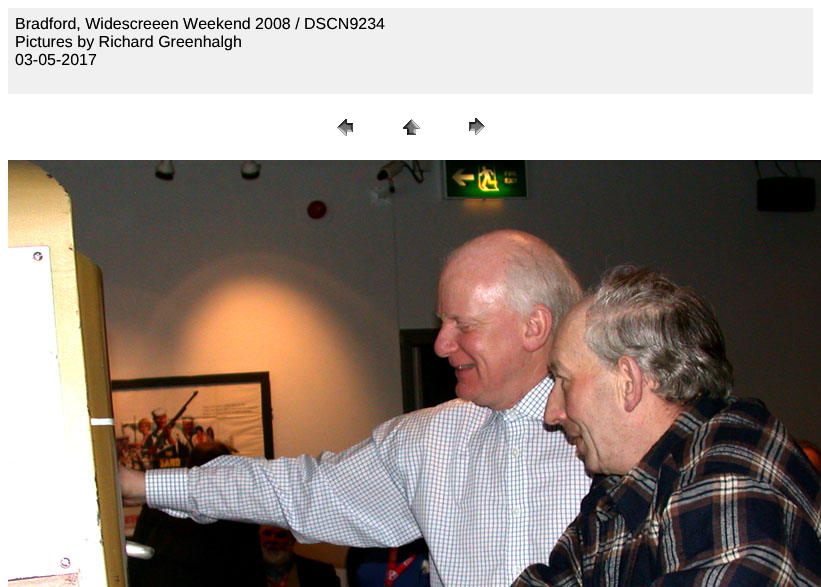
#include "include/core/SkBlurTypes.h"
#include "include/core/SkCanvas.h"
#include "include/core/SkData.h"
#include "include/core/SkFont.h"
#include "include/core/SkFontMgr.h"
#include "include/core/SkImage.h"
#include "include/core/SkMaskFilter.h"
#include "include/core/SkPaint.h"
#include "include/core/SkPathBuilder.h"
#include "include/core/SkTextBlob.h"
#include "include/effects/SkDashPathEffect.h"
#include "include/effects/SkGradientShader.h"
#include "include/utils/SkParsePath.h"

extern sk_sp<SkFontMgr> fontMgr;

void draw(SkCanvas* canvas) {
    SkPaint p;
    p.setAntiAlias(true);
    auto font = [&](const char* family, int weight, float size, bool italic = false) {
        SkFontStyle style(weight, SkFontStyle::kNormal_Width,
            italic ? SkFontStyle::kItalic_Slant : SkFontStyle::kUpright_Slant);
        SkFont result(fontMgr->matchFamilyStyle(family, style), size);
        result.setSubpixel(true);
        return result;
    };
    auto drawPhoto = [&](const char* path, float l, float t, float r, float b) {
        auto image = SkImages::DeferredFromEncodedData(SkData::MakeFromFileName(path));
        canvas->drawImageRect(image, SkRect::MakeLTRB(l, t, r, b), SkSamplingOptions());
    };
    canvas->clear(0xFFFFFFFF);
    p.setColor(0xFFF0F0F0);
    canvas->drawRect(SkRect::MakeLTRB(8, 8, 813, 94), p);
    auto font1 = font("Liberation Sans", 400, 16);
    p.setColor(0xFF000000);
    {
        const struct { const char* s; float x, y; } items[] = {
            {"Bradford, Widescreeen Weekend 2008 / DSCN9234", 15, 29},
            {"Pictures by Richard Greenhalgh", 15, 47},
            {"03-05-2017", 15, 65},
        };
        for (auto [s, x, y] : items) {
            canvas->drawString(s, x, y, font1, p);
        }
    }
    drawPhoto("media/1.png", 337, 119, 353, 136);
    drawPhoto("media/2.png", 403, 119, 420, 135);
    drawPhoto("media/3.png", 469, 118, 485, 135);
    drawPhoto("media/4.png", 8, 160, 821, 587);
}
